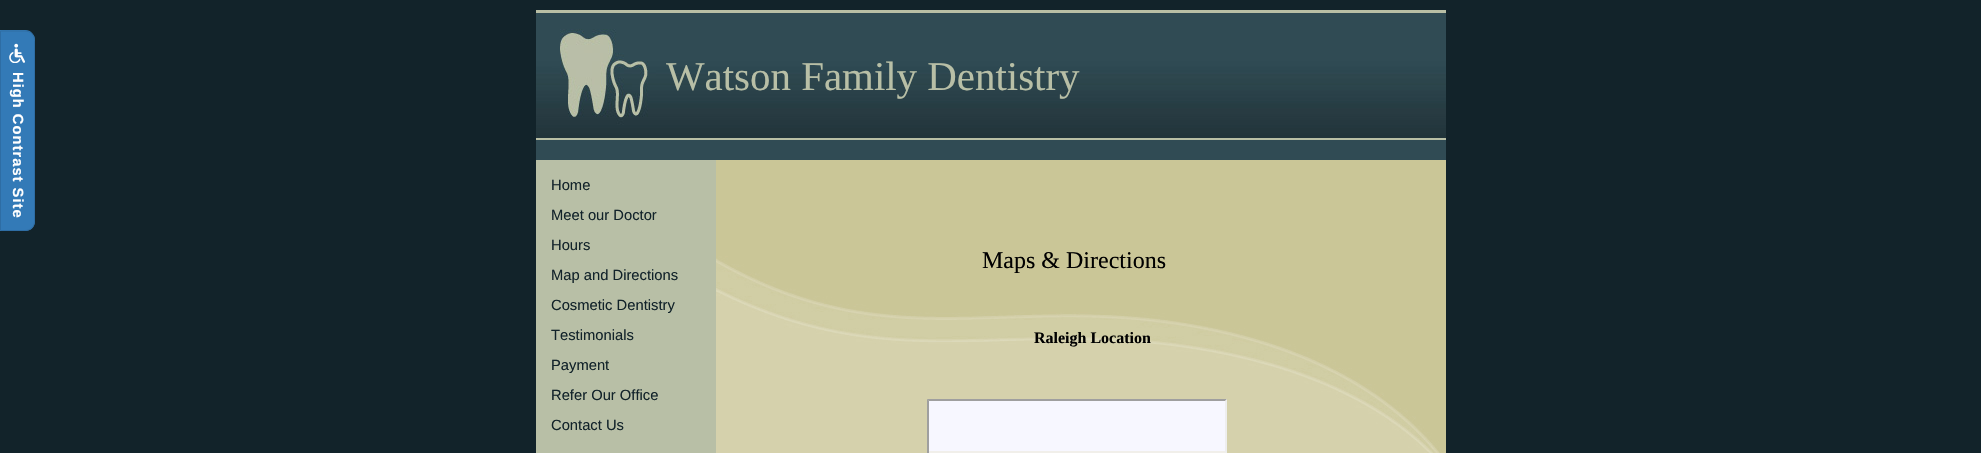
#include "include/core/SkBlurTypes.h"
#include "include/core/SkCanvas.h"
#include "include/core/SkData.h"
#include "include/core/SkFont.h"
#include "include/core/SkFontMgr.h"
#include "include/core/SkImage.h"
#include "include/core/SkMaskFilter.h"
#include "include/core/SkPaint.h"
#include "include/core/SkPathBuilder.h"
#include "include/core/SkTextBlob.h"
#include "include/effects/SkDashPathEffect.h"
#include "include/effects/SkGradientShader.h"
#include "include/utils/SkParsePath.h"

extern sk_sp<SkFontMgr> fontMgr;

void draw(SkCanvas* canvas) {
    SkPaint p;
    p.setAntiAlias(true);
    auto font = [&](const char* family, int weight, float size, bool italic = false) {
        SkFontStyle style(weight, SkFontStyle::kNormal_Width,
            italic ? SkFontStyle::kItalic_Slant : SkFontStyle::kUpright_Slant);
        SkFont result(fontMgr->matchFamilyStyle(family, style), size);
        result.setSubpixel(true);
        return result;
    };
    auto drawTracked = [&](const char* s, float x, float y, const SkFont& font, const SkPaint& ink, float letter, float word) {
        std::vector<SkGlyphID> glyphs(font.countText(s, strlen(s), SkTextEncoding::kUTF8));
        std::vector<float> xs(glyphs.size());
        font.textToGlyphs(s, strlen(s), SkTextEncoding::kUTF8, glyphs);
        font.getXPos(glyphs, xs, x);
        float extra = 0;
        for (size_t i = 0; i < glyphs.size(); i++) {
            xs[i] += extra;
            extra += letter + word * (glyphs[i] == font.unicharToGlyph(' '));
        }
        canvas->drawTextBlob(SkTextBlob::MakeFromPosHGlyphs(glyphs, xs, y, font), 0, 0, ink);
    };
    auto drawPhoto = [&](const char* path, float l, float t, float r, float b) {
        auto image = SkImages::DeferredFromEncodedData(SkData::MakeFromFileName(path));
        canvas->drawImageRect(image, SkRect::MakeLTRB(l, t, r, b), SkSamplingOptions());
    };
    canvas->clear(0xFF12232A);
    p.setColor(0xFF337AB7);
    canvas->drawPath(SkPathBuilder().moveTo(35, 40).lineTo(35, 221).cubicTo(35, 227, 31, 231, 25, 231).lineTo(0, 231).lineTo(0, 30).lineTo(25, 30).cubicTo(31, 30, 35, 35, 35, 40).close().detach(), p);
    p.setStyle(SkPaint::kStroke_Style);
    p.setStrokeWidth(1);
    p.setColor(0xFF2E6DA4);
    canvas->drawPath(SkPathBuilder().moveTo(34.5f, 40.5f).lineTo(34.5f, 221).cubicTo(34.5f, 226.5f, 30.5f, 230.5f, 25, 230.5f).lineTo(0.5f, 230.5f).lineTo(0.5f, 31).lineTo(25, 31).cubicTo(30.5f, 31, 34.5f, 35, 34.5f, 40.5f).close().detach(), p);
    drawPhoto("media/1.png", 9, 43, 25, 63);
    auto font1 = font("Liberation Sans", 700, 14.75f);
    p.setStyle(SkPaint::kFill_Style);
    p.setColor(0xFFFFFFFF);
    canvas->save();
    canvas->rotate(90, 13, 72);
    drawTracked("High Contrast Site", 13, 72, font1, p, 1, 0);
    canvas->restore();
    drawPhoto("media/2.png", 536, 13, 1446, 138);
    p.setColor(0xFFB9BFA5);
    canvas->drawRect(SkRect::MakeLTRB(536, 10, 1446, 13), p);
    canvas->drawRect(SkRect::MakeLTRB(536, 138, 1446, 140), p);
    auto font2 = font("Liberation Serif", 400, 40.9f);
    p.setColor(0xFFB8BFA6);
    canvas->drawString("Watson Family Dentistry", 666, 90, font2, p);
    p.setColor(0xFF304B54);
    canvas->drawRect(SkRect::MakeLTRB(536, 140, 1446, 160), p);
    drawPhoto("media/3.png", 716, 160, 1446, 453);
    p.setColor(0xFFB8BFA6);
    canvas->drawRect(SkRect::MakeLTRB(536, 160, 716, 453), p);
    auto font3 = font("Liberation Sans", 400, 14.75f);
    p.setColor(0xFF12232A);
    {
        const struct { const char* s; float x, y; } items[] = {
            {"Home", 551, 190},
            {"Meet our Doctor", 551, 220},
            {"Hours", 551, 250},
            {"Map and Directions", 551, 280},
            {"Cosmetic Dentistry", 551, 310},
            {"Testimonials", 551, 340},
            {"Payment", 551, 370},
            {"Refer Our Office", 551, 400},
            {"Contact Us", 551, 430},
        };
        for (auto [s, x, y] : items) {
            canvas->drawString(s, x, y, font3, p);
        }
    }
    auto font4 = font("Liberation Serif", 400, 24);
    p.setColor(0xFF000000);
    canvas->drawString("Maps & Directions", 982, 268, font4, p);
    auto font5 = font("Liberation Serif", 700, 16);
    canvas->drawString("Raleigh Location", 1034, 343, font5, p);
    p.setColor(0xFF9F9F9F);
    canvas->drawPath(SkPathBuilder().moveTo(927, 399).lineTo(1227, 399).lineTo(1225, 401).lineTo(929, 401).close().detach(), p);
    p.setColor(0xFFEEEEEE);
    canvas->drawPath(SkPathBuilder().moveTo(1227, 399).lineTo(1227, 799).lineTo(1225, 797).lineTo(1225, 401).close().detach(), p);
    p.setColor(0xFF9F9F9F);
    canvas->drawPath(SkPathBuilder().moveTo(927, 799).lineTo(927, 399).lineTo(929, 401).lineTo(929, 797).close().detach(), p);
    drawPhoto("media/4.png", 929, 401, 1225, 453);
}
